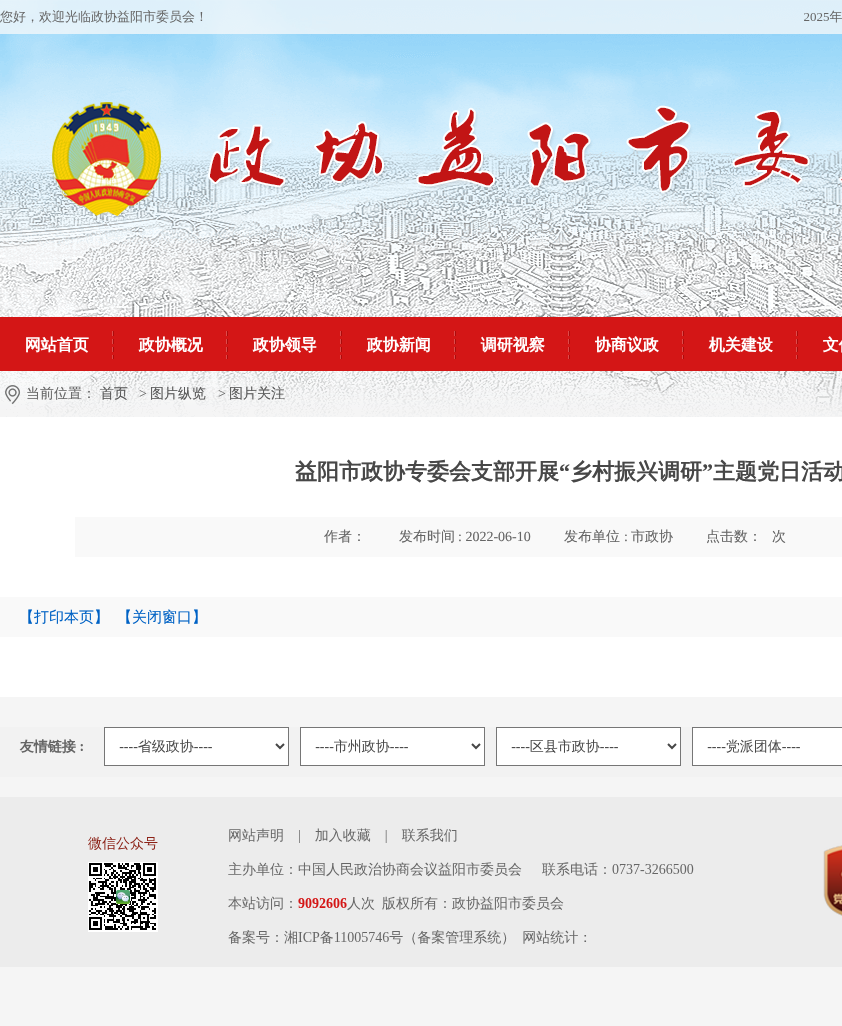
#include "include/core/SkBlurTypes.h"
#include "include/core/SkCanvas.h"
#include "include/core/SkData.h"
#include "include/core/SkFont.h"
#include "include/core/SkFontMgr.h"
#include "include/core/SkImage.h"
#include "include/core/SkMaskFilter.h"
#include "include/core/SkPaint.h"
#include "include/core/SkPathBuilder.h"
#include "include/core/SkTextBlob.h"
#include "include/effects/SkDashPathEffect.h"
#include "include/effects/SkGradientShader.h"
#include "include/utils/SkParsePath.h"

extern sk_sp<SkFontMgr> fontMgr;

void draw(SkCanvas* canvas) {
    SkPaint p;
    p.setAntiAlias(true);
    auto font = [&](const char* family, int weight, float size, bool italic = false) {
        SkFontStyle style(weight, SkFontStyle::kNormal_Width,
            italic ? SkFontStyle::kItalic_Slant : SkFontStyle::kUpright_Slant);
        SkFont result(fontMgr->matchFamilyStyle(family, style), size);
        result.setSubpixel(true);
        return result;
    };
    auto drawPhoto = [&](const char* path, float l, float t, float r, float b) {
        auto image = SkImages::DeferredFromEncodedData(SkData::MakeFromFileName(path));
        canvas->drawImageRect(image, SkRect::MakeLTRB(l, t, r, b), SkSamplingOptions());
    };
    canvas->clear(0xFFF5F5F5);
    drawPhoto("media/1.png", 0, 371, 842, 417);
    drawPhoto("media/2.png", 0, 0, 842, 371);
    drawPhoto("media/3.png", 5, 385, 20, 404);
    auto font1 = font("WenQuanYi Zen Hei", 500, 14);
    p.setColor(0xFF666666);
    canvas->drawString("当前位置：", 26, 398, font1, p);
    p.setColor(0xFF595959);
    canvas->drawString("首页", 100, 398, font1, p);
    auto font2 = font("Liberation Serif", 400, 14);
    p.setColor(0xFF666666);
    canvas->drawString(">", 139, 398, font2, p);
    p.setColor(0xFF595959);
    canvas->drawString("图片纵览", 150, 398, font1, p);
    p.setColor(0xFF666666);
    canvas->drawString(">", 218, 398, font2, p);
    p.setColor(0xFF595959);
    canvas->drawString("图片关注", 229, 398, font1, p);
    p.setColor(0xFFFFFFFF);
    canvas->drawRect(SkRect::MakeLTRB(0, 417, 842, 697), p);
    auto font3 = font("WenQuanYi Zen Hei", 700, 22);
    p.setColor(0xFF474747);
    canvas->drawString("益阳市政协专委会支部开展", 295, 479, font3, p);
    auto font4 = font("Liberation Serif", 700, 22);
    canvas->drawString("“", 559, 479, font4, p);
    canvas->drawString("乡村振兴调研", 570, 479, font3, p);
    canvas->drawString("”", 702, 479, font4, p);
    canvas->drawString("主题党日活动", 713, 479, font3, p);
    p.setColor(0xFFF9F9F9);
    canvas->drawRect(SkRect::MakeLTRB(75, 517, 842, 557), p);
    p.setColor(0xFF666666);
    canvas->drawString("作者：", 324, 541, font1, p);
    canvas->drawString("发布时间", 399, 541, font1, p);
    canvas->drawString(": 2022-06-10", 458, 541, font2, p);
    canvas->drawString("发布单位", 564, 541, font1, p);
    canvas->drawString(":", 624, 541, font2, p);
    {
        const struct { const char* s; float x, y; } items[] = {
            {"市政协", 631, 541},
            {"点击数：", 706, 541},
            {"次", 772, 541},
        };
        for (auto [s, x, y] : items) {
            canvas->drawString(s, x, y, font1, p);
        }
    }
    p.setColor(0xFFF9F9F9);
    canvas->drawRect(SkRect::MakeLTRB(0, 597, 842, 637), p);
    auto font5 = font("WenQuanYi Zen Hei", 500, 15);
    p.setColor(0xFF0062C5);
    canvas->drawString("【打印本页】", 19, 622, font5, p);
    canvas->drawString("【关闭窗口】", 117, 622, font5, p);
    drawPhoto("media/4.png", 0, 727, 842, 967);
}
